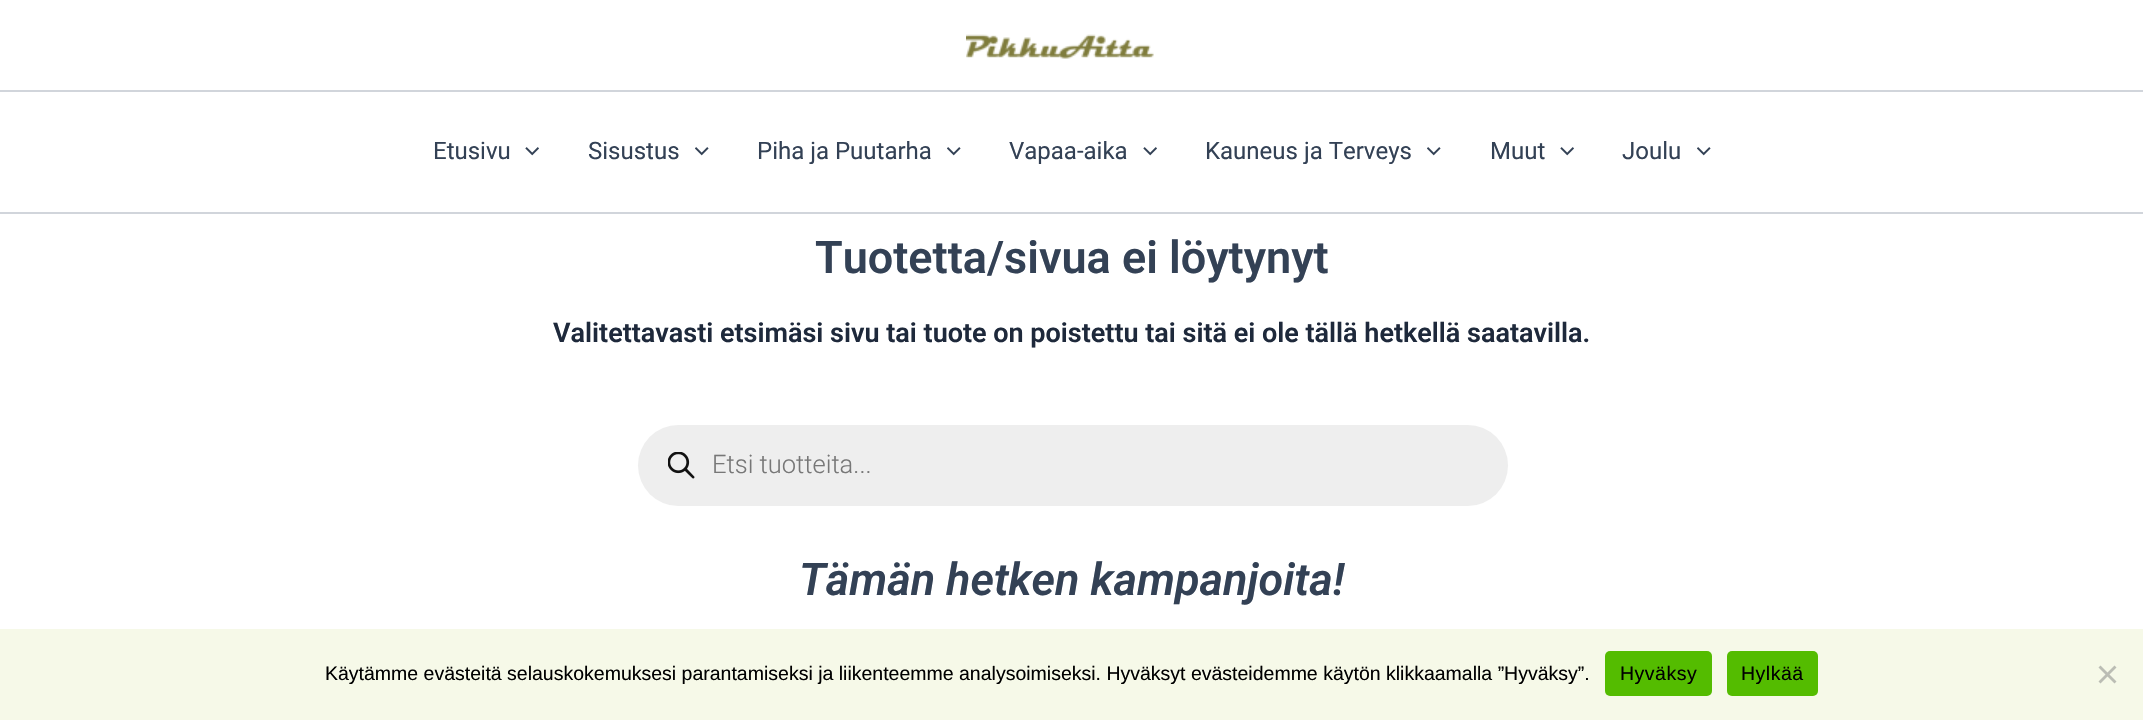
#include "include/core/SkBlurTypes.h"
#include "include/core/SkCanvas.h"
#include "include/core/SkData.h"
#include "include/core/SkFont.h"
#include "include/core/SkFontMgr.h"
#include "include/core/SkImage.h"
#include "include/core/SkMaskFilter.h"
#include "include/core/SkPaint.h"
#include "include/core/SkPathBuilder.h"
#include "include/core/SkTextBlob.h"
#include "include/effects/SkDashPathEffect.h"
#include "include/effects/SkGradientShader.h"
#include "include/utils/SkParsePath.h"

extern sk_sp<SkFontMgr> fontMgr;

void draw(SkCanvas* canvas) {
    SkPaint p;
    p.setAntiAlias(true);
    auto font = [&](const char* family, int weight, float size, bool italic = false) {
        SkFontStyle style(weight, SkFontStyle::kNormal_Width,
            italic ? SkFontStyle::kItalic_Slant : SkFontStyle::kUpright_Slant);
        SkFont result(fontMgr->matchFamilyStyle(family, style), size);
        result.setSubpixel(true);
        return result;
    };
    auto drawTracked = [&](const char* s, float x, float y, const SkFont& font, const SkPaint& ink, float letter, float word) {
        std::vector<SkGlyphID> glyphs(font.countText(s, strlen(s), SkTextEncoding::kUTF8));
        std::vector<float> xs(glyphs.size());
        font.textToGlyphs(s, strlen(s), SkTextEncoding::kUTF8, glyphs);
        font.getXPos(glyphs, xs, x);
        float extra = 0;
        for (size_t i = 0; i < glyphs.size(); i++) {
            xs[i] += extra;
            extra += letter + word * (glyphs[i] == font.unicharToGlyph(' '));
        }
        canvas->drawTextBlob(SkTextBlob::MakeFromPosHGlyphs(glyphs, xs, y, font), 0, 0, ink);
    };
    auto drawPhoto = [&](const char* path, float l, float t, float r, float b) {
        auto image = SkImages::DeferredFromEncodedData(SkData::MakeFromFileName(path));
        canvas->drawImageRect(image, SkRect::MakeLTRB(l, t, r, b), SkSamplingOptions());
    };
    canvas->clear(0xFFFFFFFF);
    p.setColor(0xFFD1D5DB);
    canvas->drawRect(SkRect::MakeLTRB(0, 90, 2143, 92), p);
    drawPhoto("media/1.png", 966, 34, 1154, 59);
    canvas->drawRect(SkRect::MakeLTRB(0, 212, 2143, 214), p);
    auto font1 = font("Roboto", 400, 24);
    p.setColor(0xFF334155);
    canvas->drawString("Etusivu", 433, 159, font1, p);
    drawPhoto("media/2.png", 525, 147, 539, 156);
    canvas->drawString("Sisustus", 588, 159, font1, p);
    drawPhoto("media/3.png", 695, 147, 709, 156);
    canvas->drawString("Piha ja Puutarha", 757, 159, font1, p);
    drawPhoto("media/3.png", 947, 147, 961, 156);
    canvas->drawString("Vapaa-aika", 1009, 159, font1, p);
    drawPhoto("media/2.png", 1143, 147, 1157, 156);
    canvas->drawString("Kauneus ja Terveys", 1205, 159, font1, p);
    drawPhoto("media/3.png", 1427, 147, 1441, 156);
    canvas->drawString("Muut", 1490, 159, font1, p);
    drawPhoto("media/2.png", 1560, 147, 1574, 156);
    canvas->drawString("Joulu", 1622, 159, font1, p);
    drawPhoto("media/3.png", 1697, 147, 1711, 156);
    auto font2 = font("Roboto", 600, 45);
    canvas->drawString("Tuotetta/sivua ei löytynyt", 815, 273, font2, p);
    auto font3 = font("Roboto", 600, 27);
    p.setColor(0xFF1E293B);
    canvas->drawString("Valitettavasti etsimäsi sivu tai tuote on poistettu tai sitä ei ole tällä hetkellä saatavilla.", 553, 342, font3, p);
    p.setColor(0xFFEEEEEE);
    canvas->drawRoundRect(SkRect::MakeLTRB(638, 425, 1508, 506), 40.5f, 40.5f, p);
    drawPhoto("media/4.png", 668, 452, 695, 479);
    auto font4 = font("Roboto", 300, 25.5f);
    p.setColor(0xFF777777);
    canvas->drawString("Etsi tuotteita...", 712, 473, font4, p);
    auto font5 = font("Roboto", 600, 45, true);
    p.setColor(0xFF334155);
    canvas->drawString("Tämän hetken kampanjoita!", 799, 595, font5, p);
    p.setColor(0xFFF6F9E8);
    canvas->drawRect(SkRect::MakeLTRB(0, 629, 2143, 720), p);
    auto font6 = font("Liberation Sans", 400, 19.5f);
    p.setColor(0xFF000000);
    canvas->drawString("Käytämme evästeitä selauskokemuksesi parantamiseksi ja liikenteemme analysoimiseksi. Hyväksyt evästeidemme käytön klikkaamalla ”Hyväksy”.", 325, 680, font6, p);
    p.setColor(0xFF54BC00);
    canvas->drawRoundRect(SkRect::MakeLTRB(1605, 651, 1712, 696), 5, 5, p);
    p.setColor(0xFF000000);
    drawTracked("Hyväksy", 1620, 680, font6, p, 0.5f, 0);
    p.setColor(0xFF54BC00);
    canvas->drawRoundRect(SkRect::MakeLTRB(1727, 651, 1818, 696), 5, 5, p);
    p.setColor(0xFF000000);
    drawTracked("Hylkää", 1741, 680, font6, p, 0.5f, 0);
    p.setColor(0xFFBBBDB4);
    canvas->drawPath(SkPathBuilder().moveTo(2114.5f, 665.5f).lineTo(2116.5f, 667.5f).lineTo(2100.5f, 683.5f).lineTo(2098.5f, 681.5f).close().detach(), p);
    canvas->drawPath(SkPathBuilder().moveTo(2098.5f, 667.5f).lineTo(2100.5f, 665.5f).lineTo(2116.5f, 681.5f).lineTo(2114.5f, 683.5f).close().detach(), p);
}
